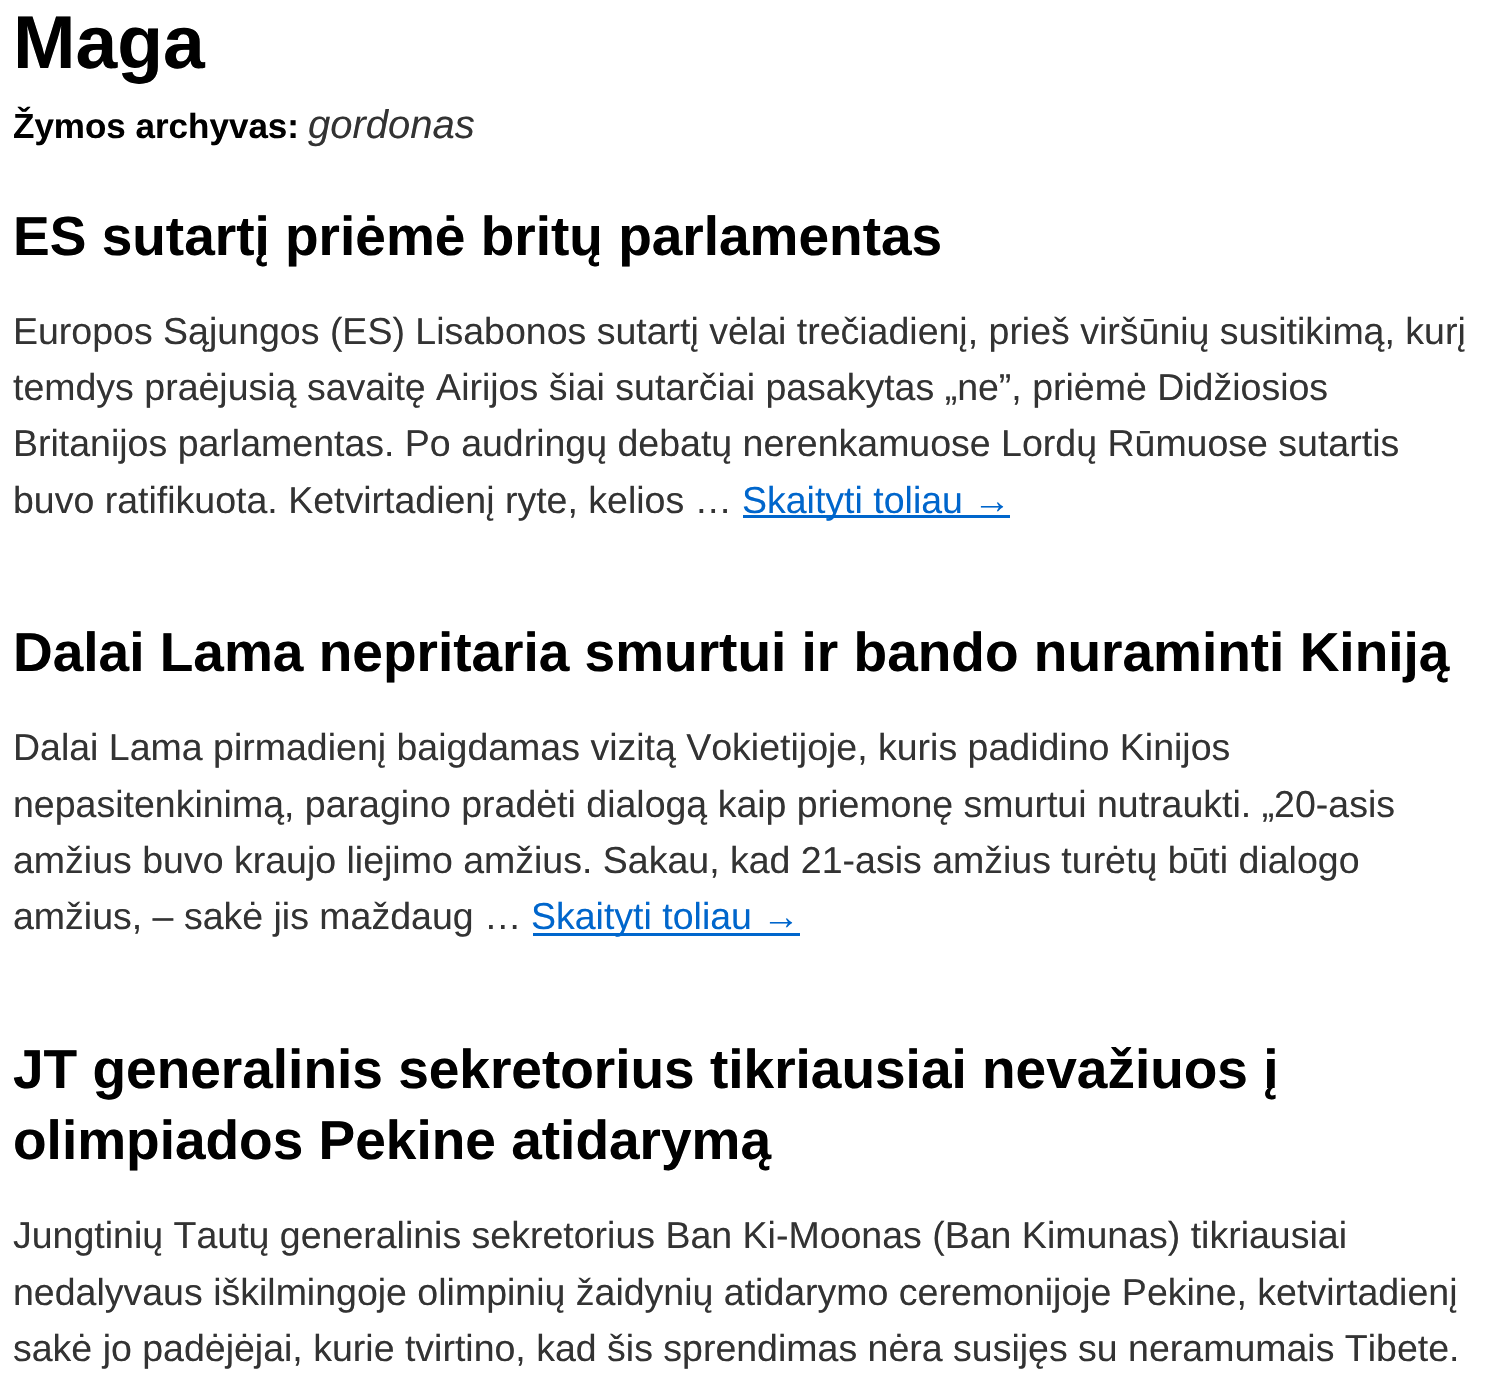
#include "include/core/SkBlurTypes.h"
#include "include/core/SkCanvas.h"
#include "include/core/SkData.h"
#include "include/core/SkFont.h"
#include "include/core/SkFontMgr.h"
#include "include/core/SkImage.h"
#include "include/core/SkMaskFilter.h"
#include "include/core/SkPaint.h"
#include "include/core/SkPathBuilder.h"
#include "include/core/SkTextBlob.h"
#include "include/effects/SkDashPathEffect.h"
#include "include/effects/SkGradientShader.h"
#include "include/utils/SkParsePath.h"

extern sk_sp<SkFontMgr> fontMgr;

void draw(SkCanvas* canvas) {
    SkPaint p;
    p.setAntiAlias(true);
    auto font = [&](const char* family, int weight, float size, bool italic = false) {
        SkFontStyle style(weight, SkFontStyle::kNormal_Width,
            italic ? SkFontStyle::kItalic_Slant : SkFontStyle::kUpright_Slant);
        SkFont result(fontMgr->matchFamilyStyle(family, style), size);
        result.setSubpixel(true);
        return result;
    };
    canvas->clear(0xFFFFFFFF);
    auto font1 = font("Liberation Sans", 700, 75);
    p.setColor(0xFF000000);
    canvas->drawString("Maga", 13, 68, font1, p);
    auto font2 = font("Liberation Sans", 700, 35);
    canvas->drawString("Žymos archyvas:", 13, 138, font2, p);
    auto font3 = font("Liberation Sans", 400, 40, true);
    p.setColor(0xFF333333);
    canvas->drawString("gordonas", 308, 138, font3, p);
    auto font4 = font("Liberation Sans", 700, 55);
    p.setColor(0xFF000000);
    canvas->drawString("ES sutartį priėmė britų parlamentas", 13, 255, font4, p);
    auto font5 = font("Liberation Sans", 400, 37.5f);
    p.setColor(0xFF333333);
    {
        const struct { const char* s; float x, y; } items[] = {
            {"Europos Sąjungos (ES) Lisabonos sutartį vėlai trečiadienį, prieš viršūnių susitikimą, kurį", 13, 344},
            {"temdys praėjusią savaitę Airijos šiai sutarčiai pasakytas „ne”, priėmė Didžiosios", 13, 400},
            {"Britanijos parlamentas. Po audringų debatų nerenkamuose Lordų Rūmuose sutartis", 13, 456},
            {"buvo ratifikuota. Ketvirtadienį ryte, kelios …", 13, 513},
        };
        for (auto [s, x, y] : items) {
            canvas->drawString(s, x, y, font5, p);
        }
    }
    p.setColor(0xFF0066CC);
    canvas->drawRect(SkRect::MakeLTRB(743, 515, 1010, 518), p);
    canvas->drawString("Skaityti toliau →", 742, 513, font5, p);
    p.setColor(0xFF000000);
    canvas->drawString("Dalai Lama nepritaria smurtui ir bando nuraminti Kiniją", 13, 671, font4, p);
    p.setColor(0xFF333333);
    {
        const struct { const char* s; float x, y; } items[] = {
            {"Dalai Lama pirmadienį baigdamas vizitą Vokietijoje, kuris padidino Kinijos", 13, 760},
            {"nepasitenkinimą, paragino pradėti dialogą kaip priemonę smurtui nutraukti. „20-asis", 13, 817},
            {"amžius buvo kraujo liejimo amžius. Sakau, kad 21-asis amžius turėtų būti dialogo", 13, 873},
            {"amžius, – sakė jis maždaug …", 13, 929},
        };
        for (auto [s, x, y] : items) {
            canvas->drawString(s, x, y, font5, p);
        }
    }
    p.setColor(0xFF0066CC);
    canvas->drawRect(SkRect::MakeLTRB(533, 933, 800, 936), p);
    canvas->drawString("Skaityti toliau →", 531, 929, font5, p);
    p.setColor(0xFF000000);
    canvas->drawString("JT generalinis sekretorius tikriausiai nevažiuos į", 13, 1088, font4, p);
    canvas->drawString("olimpiados Pekine atidarymą", 13, 1159, font4, p);
    p.setColor(0xFF333333);
    {
        const struct { const char* s; float x, y; } items[] = {
            {"Jungtinių Tautų generalinis sekretorius Ban Ki-Moonas (Ban Kimunas) tikriausiai", 13, 1248},
            {"nedalyvaus iškilmingoje olimpinių žaidynių atidarymo ceremonijoje Pekine, ketvirtadienį", 13, 1305},
            {"sakė jo padėjėjai, kurie tvirtino, kad šis sprendimas nėra susijęs su neramumais Tibete.", 13, 1361},
        };
        for (auto [s, x, y] : items) {
            canvas->drawString(s, x, y, font5, p);
        }
    }
}
